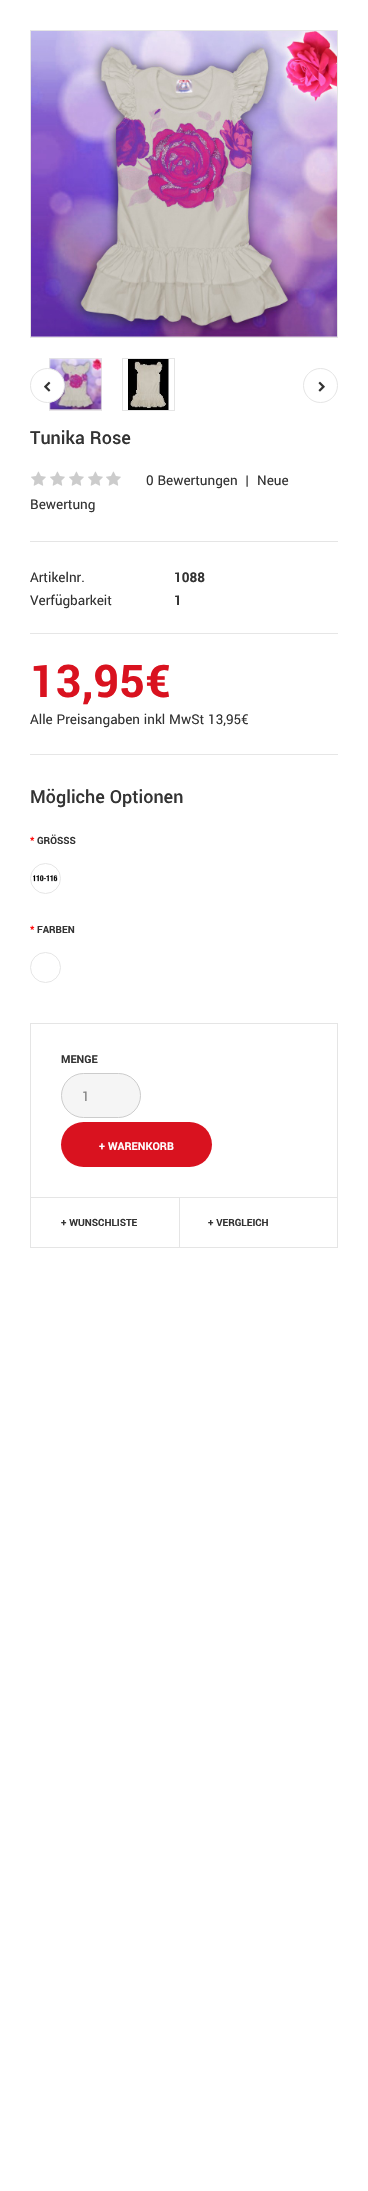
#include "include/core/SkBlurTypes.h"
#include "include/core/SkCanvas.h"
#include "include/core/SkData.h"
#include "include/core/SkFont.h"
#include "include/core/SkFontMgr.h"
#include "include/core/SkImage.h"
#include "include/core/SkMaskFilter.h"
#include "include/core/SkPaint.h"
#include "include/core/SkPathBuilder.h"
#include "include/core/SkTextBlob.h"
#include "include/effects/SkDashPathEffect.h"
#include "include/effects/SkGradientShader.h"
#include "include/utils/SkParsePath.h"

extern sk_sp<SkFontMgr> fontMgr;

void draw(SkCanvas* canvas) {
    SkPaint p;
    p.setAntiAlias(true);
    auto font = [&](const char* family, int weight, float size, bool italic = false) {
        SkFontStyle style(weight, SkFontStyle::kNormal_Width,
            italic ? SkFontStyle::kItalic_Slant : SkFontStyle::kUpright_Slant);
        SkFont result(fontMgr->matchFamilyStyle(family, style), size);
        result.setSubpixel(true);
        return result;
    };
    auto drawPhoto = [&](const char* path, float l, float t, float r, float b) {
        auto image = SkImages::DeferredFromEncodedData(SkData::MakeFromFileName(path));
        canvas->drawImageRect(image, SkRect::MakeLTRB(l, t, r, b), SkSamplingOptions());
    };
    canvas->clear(0xFFFFFFFF);
    p.setStyle(SkPaint::kStroke_Style);
    p.setStrokeWidth(1);
    p.setColor(0xFFE5E5E5);
    canvas->drawRect(SkRect::MakeLTRB(30.5f, 30.5f, 337.5f, 337.5f), p);
    drawPhoto("media/1.png", 31, 31, 337, 337);
    canvas->drawRect(SkRect::MakeLTRB(49.5f, 358.5f, 101.5f, 410.5f), p);
    drawPhoto("media/2.png", 49, 358, 102, 411);
    canvas->drawRect(SkRect::MakeLTRB(122.5f, 358.5f, 174.5f, 410.5f), p);
    drawPhoto("media/3.png", 128, 359, 169, 410);
    p.setStyle(SkPaint::kFill_Style);
    p.setColor(0xFFFFFFFF);
    canvas->drawCircle(47.5f, 385.5f, 17, p);
    p.setStyle(SkPaint::kStroke_Style);
    p.setColor(0xFFE5E5E5);
    canvas->drawCircle(47.5f, 385.5f, 17, p);
    drawPhoto("media/4.png", 44, 381, 51, 392);
    canvas->drawCircle(320.5f, 385.5f, 17, p);
    drawPhoto("media/5.png", 318, 381, 325, 392);
    auto font1 = font("Yantramanav", 500, 20);
    p.setStyle(SkPaint::kFill_Style);
    p.setColor(0xFF333333);
    canvas->drawString("Tunika Rose", 30, 444, font1, p);
    p.setColor(0xFFE5E5E5);
    canvas->drawRect(SkRect::MakeLTRB(30, 541, 338, 542), p);
    drawPhoto("media/6.png", 31, 471, 46, 486);
    drawPhoto("media/6.png", 50, 471, 65, 486);
    drawPhoto("media/6.png", 69, 471, 84, 486);
    drawPhoto("media/6.png", 88, 471, 103, 486);
    drawPhoto("media/6.png", 106, 471, 121, 486);
    auto font2 = font("Yantramanav", 400, 15);
    p.setColor(0xFF333333);
    {
        const struct { const char* s; float x, y; } items[] = {
            {"0 Bewertungen", 146, 485},
            {"|", 245, 485},
            {"Neue", 257, 485},
            {"Bewertung", 30, 509},
        };
        for (auto [s, x, y] : items) {
            canvas->drawString(s, x, y, font2, p);
        }
    }
    p.setColor(0xFFE6E6E6);
    canvas->drawRect(SkRect::MakeLTRB(30, 633, 338, 634), p);
    p.setColor(0xFF333333);
    canvas->drawString("Artikelnr.", 30, 582, font2, p);
    auto font3 = font("Yantramanav", 700, 15);
    canvas->drawString("1088", 174, 582, font3, p);
    canvas->drawString("Verfügbarkeit", 30, 605, font2, p);
    canvas->drawString("1", 174, 605, font3, p);
    auto font4 = font("Yantramanav", 700, 50);
    p.setColor(0xFFD9121F);
    canvas->drawString("13,95€", 30, 697, font4, p);
    p.setColor(0xFF333333);
    canvas->drawString("Alle Preisangaben inkl MwSt 13,95€", 30, 724, font2, p);
    p.setColor(0xFFE6E6E6);
    canvas->drawRect(SkRect::MakeLTRB(30, 754, 338, 755), p);
    p.setColor(0xFF333333);
    canvas->drawString("Mögliche Optionen", 30, 803, font1, p);
    auto font5 = font("Yantramanav", 700, 11);
    p.setColor(0xFFFF0000);
    canvas->drawString("*", 30, 844, font5, p);
    p.setColor(0xFF333333);
    canvas->drawString("GRÖSSS", 37, 844, font5, p);
    p.setStyle(SkPaint::kStroke_Style);
    p.setColor(0xFFE6E6E6);
    canvas->drawCircle(45.5f, 878.5f, 15, p);
    drawPhoto("media/7.png", 33, 875, 58, 882);
    p.setStyle(SkPaint::kFill_Style);
    p.setColor(0xFFFF0000);
    canvas->drawString("*", 30, 933, font5, p);
    p.setColor(0xFF333333);
    canvas->drawString("FARBEN", 37, 933, font5, p);
    p.setStyle(SkPaint::kStroke_Style);
    p.setColor(0xFFE6E6E6);
    canvas->drawCircle(45.5f, 967.5f, 15, p);
    p.setStyle(SkPaint::kFill_Style);
    p.setColor(0xFFFDFDFB);
    canvas->drawRect(SkRect::MakeLTRB(57, 965, 58, 966), p);
    p.setStyle(SkPaint::kStroke_Style);
    p.setColor(0xFFE5E5E5);
    canvas->drawRect(SkRect::MakeLTRB(30.5f, 1023.5f, 337.5f, 1247.5f), p);
    auto font6 = font("Yantramanav", 700, 12);
    p.setStyle(SkPaint::kFill_Style);
    p.setColor(0xFF333333);
    canvas->drawString("MENGE", 61, 1063, font6, p);
    p.setColor(0xFFF5F5F5);
    canvas->drawRoundRect(SkRect::MakeLTRB(61.5f, 1073.5f, 140.5f, 1117.5f), 22, 22, p);
    p.setStyle(SkPaint::kStroke_Style);
    p.setColor(0xFFCCCCCC);
    canvas->drawRoundRect(SkRect::MakeLTRB(61.5f, 1073.5f, 140.5f, 1117.5f), 22, 22, p);
    p.setStyle(SkPaint::kFill_Style);
    p.setColor(0xFF808080);
    canvas->drawString("1", 82, 1101, font2, p);
    p.setColor(0xFFD9121F);
    canvas->drawRoundRect(SkRect::MakeLTRB(61, 1122, 212, 1167), 22.5f, 22.5f, p);
    p.setColor(0xFFFFFFFF);
    canvas->drawString("+ WARENKORB", 99, 1150, font6, p);
    p.setColor(0xFFE5E5E5);
    canvas->drawRect(SkRect::MakeLTRB(31, 1197, 337, 1198), p);
    p.setColor(0xFF333333);
    canvas->drawString("+ WUNSCHLISTE", 61, 1226, font5, p);
    p.setColor(0xFFE5E5E5);
    canvas->drawRect(SkRect::MakeLTRB(179, 1198, 180, 1247), p);
    p.setColor(0xFF333333);
    canvas->drawString("+ VERGLEICH", 208, 1226, font5, p);
}
